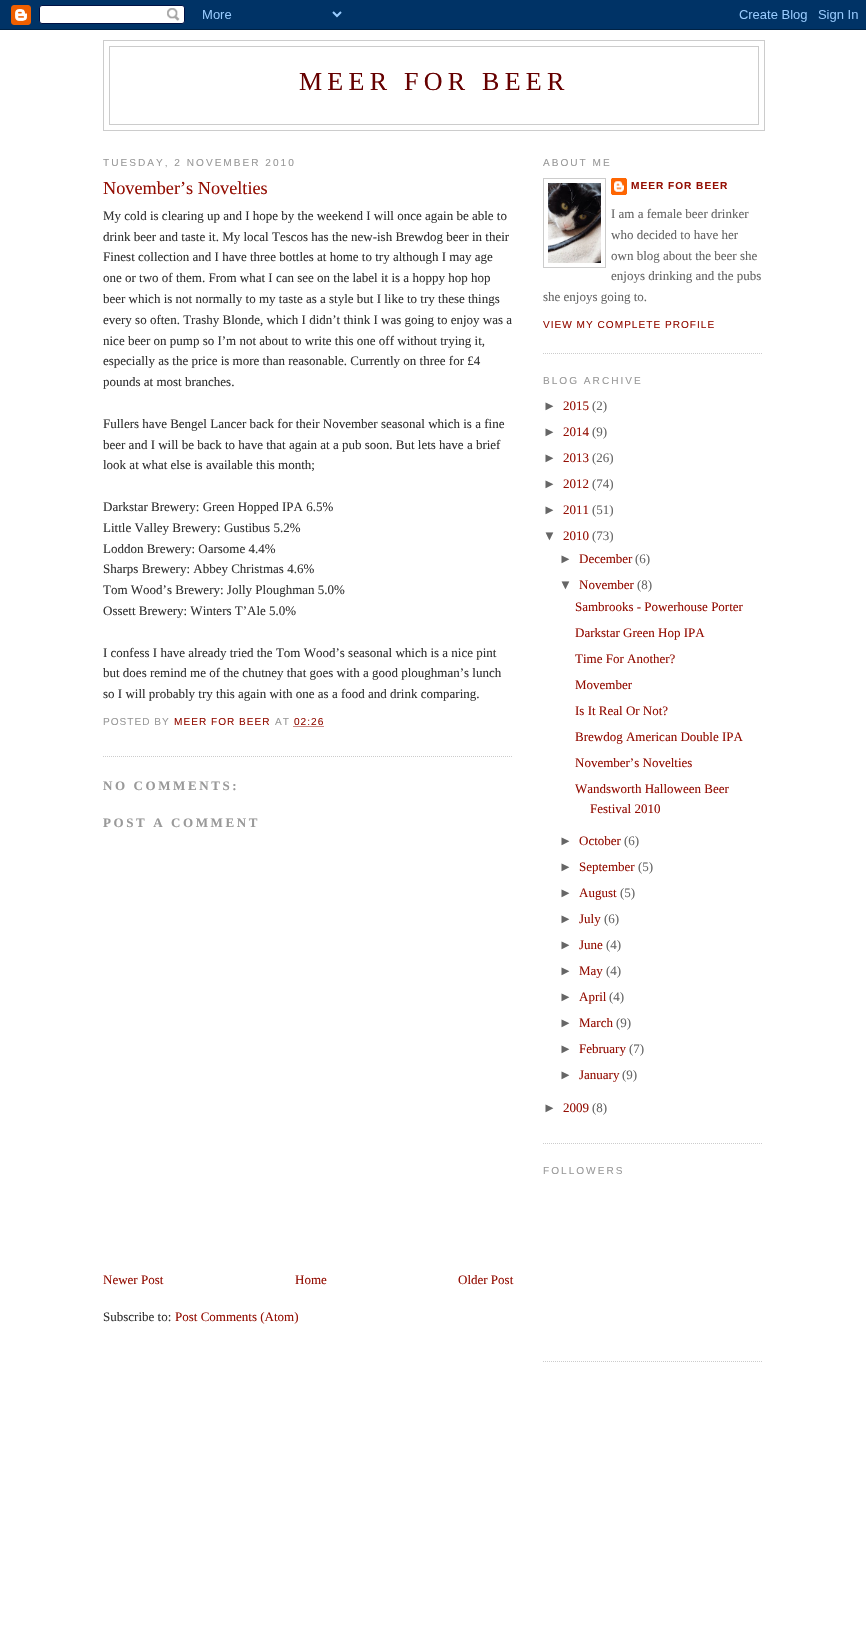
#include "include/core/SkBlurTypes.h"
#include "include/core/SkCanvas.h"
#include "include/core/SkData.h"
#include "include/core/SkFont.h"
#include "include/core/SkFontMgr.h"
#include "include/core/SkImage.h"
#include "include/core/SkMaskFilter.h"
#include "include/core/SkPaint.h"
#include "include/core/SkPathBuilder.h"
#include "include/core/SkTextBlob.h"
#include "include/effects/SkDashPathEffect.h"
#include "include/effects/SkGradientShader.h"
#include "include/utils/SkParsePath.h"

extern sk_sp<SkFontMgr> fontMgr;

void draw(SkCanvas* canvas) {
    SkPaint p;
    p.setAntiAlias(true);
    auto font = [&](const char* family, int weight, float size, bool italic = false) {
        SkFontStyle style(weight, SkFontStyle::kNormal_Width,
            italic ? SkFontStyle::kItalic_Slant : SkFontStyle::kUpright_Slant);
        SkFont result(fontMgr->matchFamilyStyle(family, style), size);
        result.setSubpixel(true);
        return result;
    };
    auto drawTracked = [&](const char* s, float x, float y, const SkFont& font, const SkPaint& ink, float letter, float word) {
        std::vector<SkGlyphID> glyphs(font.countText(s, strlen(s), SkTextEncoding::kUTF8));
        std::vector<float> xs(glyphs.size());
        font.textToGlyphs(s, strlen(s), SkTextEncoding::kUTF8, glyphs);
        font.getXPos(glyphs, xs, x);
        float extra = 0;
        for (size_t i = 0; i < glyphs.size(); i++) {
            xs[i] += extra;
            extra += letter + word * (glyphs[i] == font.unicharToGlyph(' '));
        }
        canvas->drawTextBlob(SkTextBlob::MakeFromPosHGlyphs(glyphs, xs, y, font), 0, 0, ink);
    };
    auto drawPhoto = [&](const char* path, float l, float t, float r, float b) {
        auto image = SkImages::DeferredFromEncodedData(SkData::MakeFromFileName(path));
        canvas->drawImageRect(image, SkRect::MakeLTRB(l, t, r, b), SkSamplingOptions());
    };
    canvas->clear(0xFFFFFFFF);
    drawPhoto("media/1.png", 0, 0, 866, 30);
    p.setStyle(SkPaint::kStroke_Style);
    p.setStrokeWidth(1);
    p.setColor(0xFFCCCCCC);
    canvas->drawRect(SkRect::MakeLTRB(103.5f, 40.5f, 764.5f, 130.5f), p);
    canvas->drawRect(SkRect::MakeLTRB(109.5f, 46.5f, 758.5f, 124.5f), p);
    auto font1 = font("Liberation Serif", 400, 26);
    p.setStyle(SkPaint::kFill_Style);
    p.setColor(0xFF660000);
    drawTracked("MEER FOR BEER", 299, 90, font1, p, 5.25f, 0);
    auto font2 = font("Liberation Sans", 400, 10.1f);
    p.setColor(0xFF999999);
    drawTracked("TUESDAY, 2 NOVEMBER 2010", 103, 166, font2, p, 2, 0);
    p.setStyle(SkPaint::kStroke_Style);
    p.setColor(0xFFCCCCCC);
    p.setPathEffect(SkDashPathEffect::Make({{1, 1}}, 0));
    canvas->drawPath(SkPathBuilder().moveTo(103, 756.5f).lineTo(513, 756.5f).detach(), p);
    p.setPathEffect(nullptr);
    auto font3 = font("Liberation Serif", 400, 18.25f);
    p.setStyle(SkPaint::kFill_Style);
    p.setColor(0xFF940F04);
    canvas->drawString("November’s Novelties", 103, 194, font3, p);
    auto font4 = font("Liberation Serif", 400, 13);
    p.setColor(0xFF333333);
    {
        const struct { const char* s; float x, y; } items[] = {
            {"My cold is clearing up and I hope by the weekend I will once again be able to", 103, 220},
            {"drink beer and taste it. My local Tescos has the new-ish Brewdog beer in their", 103, 241},
            {"Finest collection and I have three bottles at home to try although I may age", 103, 261},
            {"one or two of them. From what I can see on the label it is a hoppy hop hop", 103, 282},
            {"beer which is not normally to my taste as a style but I like to try these things", 103, 303},
            {"every so often. Trashy Blonde, which I didn’t think I was going to enjoy was a", 103, 324},
            {"nice beer on pump so I’m not about to write this one off without trying it,", 103, 345},
            {"especially as the price is more than reasonable. Currently on three for £4", 103, 365},
            {"pounds at most branches.", 103, 386},
            {"Fullers have Bengel Lancer back for their November seasonal which is a fine", 103, 428},
            {"beer and I will be back to have that again at a pub soon. But lets have a brief", 103, 449},
            {"look at what else is available this month;", 103, 469},
            {"Darkstar Brewery: Green Hopped IPA 6.5%", 103, 511},
            {"Little Valley Brewery: Gustibus 5.2%", 103, 532},
            {"Loddon Brewery: Oarsome 4.4%", 103, 553},
            {"Sharps Brewery: Abbey Christmas 4.6%", 103, 573},
            {"Tom Wood’s Brewery: Jolly Ploughman 5.0%", 103, 594},
            {"Ossett Brewery: Winters T’Ale 5.0%", 103, 615},
            {"I confess I have already tried the Tom Wood’s seasonal which is a nice pint", 103, 657},
            {"but does remind me of the chutney that goes with a good ploughman’s lunch", 103, 677},
            {"so I will probably try this again with one as a food and drink comparing.", 103, 698},
        };
        for (auto [s, x, y] : items) {
            canvas->drawString(s, x, y, font4, p);
        }
    }
    p.setColor(0xFF999999);
    drawTracked("POSTED BY", 103, 725, font2, p, 1, 0);
    p.setColor(0xFF940F04);
    drawTracked("MEER FOR BEER", 174, 725, font2, p, 1, 0);
    p.setColor(0xFF999999);
    drawTracked("AT", 275, 725, font2, p, 1, 0);
    p.setColor(0xFF940F04);
    drawTracked("02:26", 294, 725, font2, p, 1, 0);
    p.setStyle(SkPaint::kStroke_Style);
    p.setPathEffect(SkDashPathEffect::Make({{1, 1}}, 0));
    canvas->drawPath(SkPathBuilder().moveTo(293.5f, 726.5f).lineTo(324, 726.5f).detach(), p);
    p.setPathEffect(nullptr);
    auto font5 = font("Liberation Serif", 700, 13);
    p.setStyle(SkPaint::kFill_Style);
    p.setColor(0xFF999999);
    drawTracked("NO COMMENTS:", 103, 790, font5, p, 2.6f, 0);
    drawTracked("POST A COMMENT", 103, 827, font5, p, 2.6f, 0);
    p.setColor(0xFF940F04);
    {
        const struct { const char* s; float x, y; } items[] = {
            {"Newer Post", 103, 1284},
            {"Home", 295, 1284},
            {"Older Post", 458, 1284},
        };
        for (auto [s, x, y] : items) {
            canvas->drawString(s, x, y, font4, p);
        }
    }
    p.setColor(0xFF333333);
    canvas->drawString("Subscribe to:", 103, 1321, font4, p);
    p.setColor(0xFF940F04);
    canvas->drawString("Post Comments (Atom)", 175, 1321, font4, p);
    p.setStyle(SkPaint::kStroke_Style);
    p.setColor(0xFFCCCCCC);
    p.setPathEffect(SkDashPathEffect::Make({{1, 1}}, 0));
    canvas->drawPath(SkPathBuilder().moveTo(543, 353.5f).lineTo(763, 353.5f).detach(), p);
    p.setPathEffect(nullptr);
    p.setStyle(SkPaint::kFill_Style);
    p.setColor(0xFF999999);
    drawTracked("ABOUT ME", 543, 166, font2, p, 2, 0);
    p.setStyle(SkPaint::kStroke_Style);
    p.setColor(0xFFCCCCCC);
    canvas->drawRect(SkRect::MakeLTRB(543.5f, 178.5f, 605.5f, 267.5f), p);
    drawPhoto("media/2.png", 548, 183, 601, 263);
    drawPhoto("media/3.png", 611, 178, 627, 195);
    auto font6 = font("Liberation Sans", 700, 10.1f);
    p.setStyle(SkPaint::kFill_Style);
    p.setColor(0xFF940F04);
    drawTracked("MEER FOR BEER", 631, 189, font6, p, 1, 0);
    p.setColor(0xFF666666);
    {
        const struct { const char* s; float x, y; } items[] = {
            {"I am a female beer drinker", 611, 218},
            {"who decided to have her", 611, 239},
            {"own blog about the beer she", 611, 260},
            {"enjoys drinking and the pubs", 611, 280},
            {"she enjoys going to.", 543, 301},
        };
        for (auto [s, x, y] : items) {
            canvas->drawString(s, x, y, font4, p);
        }
    }
    p.setColor(0xFF940F04);
    drawTracked("VIEW MY COMPLETE PROFILE", 543, 328, font2, p, 1, 0);
    p.setStyle(SkPaint::kStroke_Style);
    p.setColor(0xFFCCCCCC);
    p.setPathEffect(SkDashPathEffect::Make({{1, 1}}, 0));
    canvas->drawPath(SkPathBuilder().moveTo(543, 1143.5f).lineTo(763, 1143.5f).detach(), p);
    p.setPathEffect(nullptr);
    p.setStyle(SkPaint::kFill_Style);
    p.setColor(0xFF999999);
    drawTracked("BLOG ARCHIVE", 543, 384, font2, p, 2, 0);
    auto font7 = font("Liberation Sans", 400, 13);
    p.setColor(0xFF666666);
    canvas->drawString("►", 543, 410, font7, p);
    p.setColor(0xFF940F04);
    canvas->drawString("2015", 563, 410, font4, p);
    p.setColor(0xFF666666);
    canvas->drawString("(2)", 592, 410, font4, p);
    canvas->drawString("►", 543, 436, font7, p);
    p.setColor(0xFF940F04);
    canvas->drawString("2014", 563, 436, font4, p);
    p.setColor(0xFF666666);
    canvas->drawString("(9)", 592, 436, font4, p);
    canvas->drawString("►", 543, 462, font7, p);
    p.setColor(0xFF940F04);
    canvas->drawString("2013", 563, 462, font4, p);
    p.setColor(0xFF666666);
    canvas->drawString("(26)", 592, 462, font4, p);
    canvas->drawString("►", 543, 488, font7, p);
    p.setColor(0xFF940F04);
    canvas->drawString("2012", 563, 488, font4, p);
    p.setColor(0xFF666666);
    canvas->drawString("(74)", 592, 488, font4, p);
    canvas->drawString("►", 543, 514, font7, p);
    p.setColor(0xFF940F04);
    canvas->drawString("2011", 563, 514, font4, p);
    p.setColor(0xFF666666);
    canvas->drawString("(51)", 592, 514, font4, p);
    canvas->drawString("▼", 543, 540, font7, p);
    p.setColor(0xFF940F04);
    canvas->drawString("2010", 563, 540, font4, p);
    p.setColor(0xFF666666);
    canvas->drawString("(73)", 592, 540, font4, p);
    canvas->drawString("►", 559, 563, font7, p);
    p.setColor(0xFF940F04);
    canvas->drawString("December", 579, 563, font4, p);
    p.setColor(0xFF666666);
    canvas->drawString("(6)", 635, 563, font4, p);
    canvas->drawString("▼", 559, 589, font7, p);
    p.setColor(0xFF940F04);
    canvas->drawString("November", 579, 589, font4, p);
    p.setColor(0xFF666666);
    canvas->drawString("(8)", 637, 589, font4, p);
    p.setColor(0xFF940F04);
    {
        const struct { const char* s; float x, y; } items[] = {
            {"Sambrooks - Powerhouse Porter", 575, 611},
            {"Darkstar Green Hop IPA", 575, 637},
            {"Time For Another?", 575, 663},
            {"Movember", 575, 689},
            {"Is It Real Or Not?", 575, 715},
            {"Brewdog American Double IPA", 575, 741},
            {"November’s Novelties", 575, 767},
            {"Wandsworth Halloween Beer", 575, 793},
            {"Festival 2010", 590, 813},
        };
        for (auto [s, x, y] : items) {
            canvas->drawString(s, x, y, font4, p);
        }
    }
    p.setColor(0xFF666666);
    canvas->drawString("►", 559, 845, font7, p);
    p.setColor(0xFF940F04);
    canvas->drawString("October", 579, 845, font4, p);
    p.setColor(0xFF666666);
    canvas->drawString("(6)", 624, 845, font4, p);
    canvas->drawString("►", 559, 871, font7, p);
    p.setColor(0xFF940F04);
    canvas->drawString("September", 579, 871, font4, p);
    p.setColor(0xFF666666);
    canvas->drawString("(5)", 638, 871, font4, p);
    canvas->drawString("►", 559, 897, font7, p);
    p.setColor(0xFF940F04);
    canvas->drawString("August", 579, 897, font4, p);
    p.setColor(0xFF666666);
    canvas->drawString("(5)", 620, 897, font4, p);
    canvas->drawString("►", 559, 923, font7, p);
    p.setColor(0xFF940F04);
    canvas->drawString("July", 579, 923, font4, p);
    p.setColor(0xFF666666);
    canvas->drawString("(6)", 604, 923, font4, p);
    canvas->drawString("►", 559, 949, font7, p);
    p.setColor(0xFF940F04);
    canvas->drawString("June", 579, 949, font4, p);
    p.setColor(0xFF666666);
    canvas->drawString("(4)", 606, 949, font4, p);
    canvas->drawString("►", 559, 975, font7, p);
    p.setColor(0xFF940F04);
    canvas->drawString("May", 579, 975, font4, p);
    p.setColor(0xFF666666);
    canvas->drawString("(4)", 606, 975, font4, p);
    canvas->drawString("►", 559, 1001, font7, p);
    p.setColor(0xFF940F04);
    canvas->drawString("April", 579, 1001, font4, p);
    p.setColor(0xFF666666);
    canvas->drawString("(4)", 609, 1001, font4, p);
    canvas->drawString("►", 559, 1027, font7, p);
    p.setColor(0xFF940F04);
    canvas->drawString("March", 579, 1027, font4, p);
    p.setColor(0xFF666666);
    canvas->drawString("(9)", 616, 1027, font4, p);
    canvas->drawString("►", 559, 1053, font7, p);
    p.setColor(0xFF940F04);
    canvas->drawString("February", 579, 1053, font4, p);
    p.setColor(0xFF666666);
    canvas->drawString("(7)", 629, 1053, font4, p);
    canvas->drawString("►", 559, 1079, font7, p);
    p.setColor(0xFF940F04);
    canvas->drawString("January", 579, 1079, font4, p);
    p.setColor(0xFF666666);
    canvas->drawString("(9)", 622, 1079, font4, p);
    canvas->drawString("►", 543, 1112, font7, p);
    p.setColor(0xFF940F04);
    canvas->drawString("2009", 563, 1112, font4, p);
    p.setColor(0xFF666666);
    canvas->drawString("(8)", 592, 1112, font4, p);
    p.setStyle(SkPaint::kStroke_Style);
    p.setColor(0xFFCCCCCC);
    p.setPathEffect(SkDashPathEffect::Make({{1, 1}}, 0));
    canvas->drawPath(SkPathBuilder().moveTo(543, 1361.5f).lineTo(763, 1361.5f).detach(), p);
    p.setPathEffect(nullptr);
    p.setStyle(SkPaint::kFill_Style);
    p.setColor(0xFF999999);
    drawTracked("FOLLOWERS", 543, 1174, font2, p, 2, 0);
}
